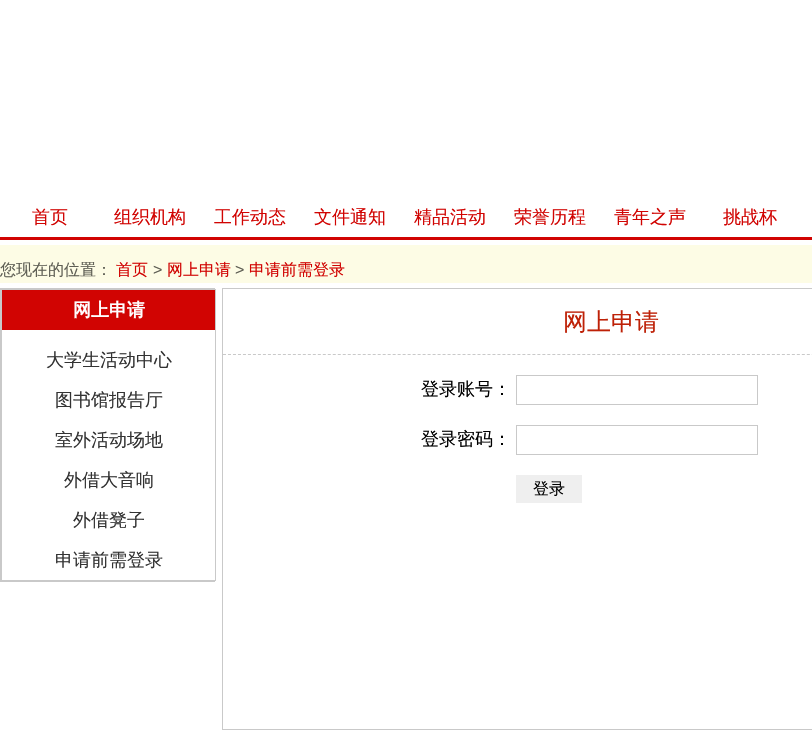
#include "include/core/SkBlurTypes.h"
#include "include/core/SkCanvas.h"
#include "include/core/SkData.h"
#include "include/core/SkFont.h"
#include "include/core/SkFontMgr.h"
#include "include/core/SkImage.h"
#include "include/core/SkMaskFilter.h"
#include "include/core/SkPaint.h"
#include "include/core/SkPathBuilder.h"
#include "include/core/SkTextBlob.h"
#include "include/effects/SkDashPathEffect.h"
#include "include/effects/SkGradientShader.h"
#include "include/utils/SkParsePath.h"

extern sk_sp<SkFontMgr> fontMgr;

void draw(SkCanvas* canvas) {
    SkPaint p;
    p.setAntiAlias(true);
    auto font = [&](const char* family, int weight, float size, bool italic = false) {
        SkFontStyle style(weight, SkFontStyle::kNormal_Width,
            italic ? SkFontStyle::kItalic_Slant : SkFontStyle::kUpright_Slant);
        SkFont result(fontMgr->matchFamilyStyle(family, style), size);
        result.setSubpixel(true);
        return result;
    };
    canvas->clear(0xFFFFFFFF);
    auto font1 = font("WenQuanYi Zen Hei", 500, 18);
    p.setColor(0xFFD10402);
    {
        const struct { const char* s; float x, y; } items[] = {
            {"首页", 32, 223},
            {"组织机构", 114, 223},
            {"工作动态", 214, 223},
            {"文件通知", 314, 223},
            {"精品活动", 414, 223},
            {"荣誉历程", 514, 223},
            {"青年之声", 614, 223},
            {"挑战杯", 723, 223},
        };
        for (auto [s, x, y] : items) {
            canvas->drawString(s, x, y, font1, p);
        }
    }
    canvas->drawRect(SkRect::MakeLTRB(0, 237, 812, 240), p);
    p.setColor(0xFFFDFCE5);
    canvas->drawRect(SkRect::MakeLTRB(0, 245, 812, 283), p);
    auto font2 = font("WenQuanYi Zen Hei", 500, 16);
    p.setColor(0xFF5E5E54);
    canvas->drawString("您现在的位置：", 0, 275, font2, p);
    p.setColor(0xFFD10402);
    canvas->drawString("首页", 116, 275, font2, p);
    auto font3 = font("Liberation Sans", 400, 16);
    p.setColor(0xFF5E5E54);
    canvas->drawString(">", 153, 275, font3, p);
    p.setColor(0xFFD10402);
    canvas->drawString("网上申请", 167, 275, font2, p);
    p.setColor(0xFF5E5E54);
    canvas->drawString(">", 235, 275, font3, p);
    p.setColor(0xFFD10402);
    canvas->drawString("申请前需登录", 249, 275, font2, p);
    p.setStyle(SkPaint::kStroke_Style);
    p.setStrokeWidth(1);
    p.setColor(0xFFC9C9C9);
    canvas->drawRect(SkRect::MakeLTRB(0.5f, 288.5f, 214.5f, 581.5f), p);
    p.setStyle(SkPaint::kFill_Style);
    p.setColor(0xFFFFFFFF);
    canvas->drawRect(SkRect::MakeLTRB(214, 330, 215, 580), p);
    p.setStyle(SkPaint::kStroke_Style);
    p.setColor(0xFFC9C9C9);
    canvas->drawRect(SkRect::MakeLTRB(1.5f, 289.5f, 215.5f, 580.5f), p);
    p.setStyle(SkPaint::kFill_Style);
    p.setColor(0xFFD10402);
    canvas->drawRect(SkRect::MakeLTRB(2, 290, 215, 330), p);
    auto font4 = font("WenQuanYi Zen Hei", 700, 18);
    p.setColor(0xFFFFFFFF);
    canvas->drawString("网上申请", 73, 316, font4, p);
    p.setColor(0xFF333333);
    {
        const struct { const char* s; float x, y; } items[] = {
            {"大学生活动中心", 46, 366},
            {"图书馆报告厅", 55, 406},
            {"室外活动场地", 55, 446},
            {"外借大音响", 64, 486},
            {"外借凳子", 73, 526},
            {"申请前需登录", 55, 566},
        };
        for (auto [s, x, y] : items) {
            canvas->drawString(s, x, y, font1, p);
        }
    }
    p.setStyle(SkPaint::kStroke_Style);
    p.setColor(0xFFC9C9C9);
    canvas->drawRect(SkRect::MakeLTRB(222.5f, 288.5f, 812.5f, 729.5f), p);
    p.setPathEffect(SkDashPathEffect::Make({{3, 1.99f}}, 0));
    canvas->drawPath(SkPathBuilder().moveTo(223, 354.5f).lineTo(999, 354.5f).detach(), p);
    p.setPathEffect(nullptr);
    auto font5 = font("WenQuanYi Zen Hei", 500, 24);
    p.setStyle(SkPaint::kFill_Style);
    p.setColor(0xFFBE2107);
    canvas->drawString("网上申请", 563, 330, font5, p);
    p.setColor(0xFF000000);
    canvas->drawString("登录账号：", 421, 395, font1, p);
    p.setStyle(SkPaint::kStroke_Style);
    p.setColor(0xFFC9C9C9);
    canvas->drawRect(SkRect::MakeLTRB(516.5f, 375.5f, 757.5f, 404.5f), p);
    p.setStyle(SkPaint::kFill_Style);
    p.setColor(0xFF000000);
    canvas->drawString("登录密码：", 421, 445, font1, p);
    p.setStyle(SkPaint::kStroke_Style);
    p.setColor(0xFFC9C9C9);
    canvas->drawRect(SkRect::MakeLTRB(516.5f, 425.5f, 757.5f, 454.5f), p);
    p.setStyle(SkPaint::kFill_Style);
    p.setColor(0xFFEFEFEF);
    canvas->drawRect(SkRect::MakeLTRB(516, 475, 582, 503), p);
    p.setColor(0xFF000000);
    canvas->drawString("登录", 533, 494, font2, p);
}
